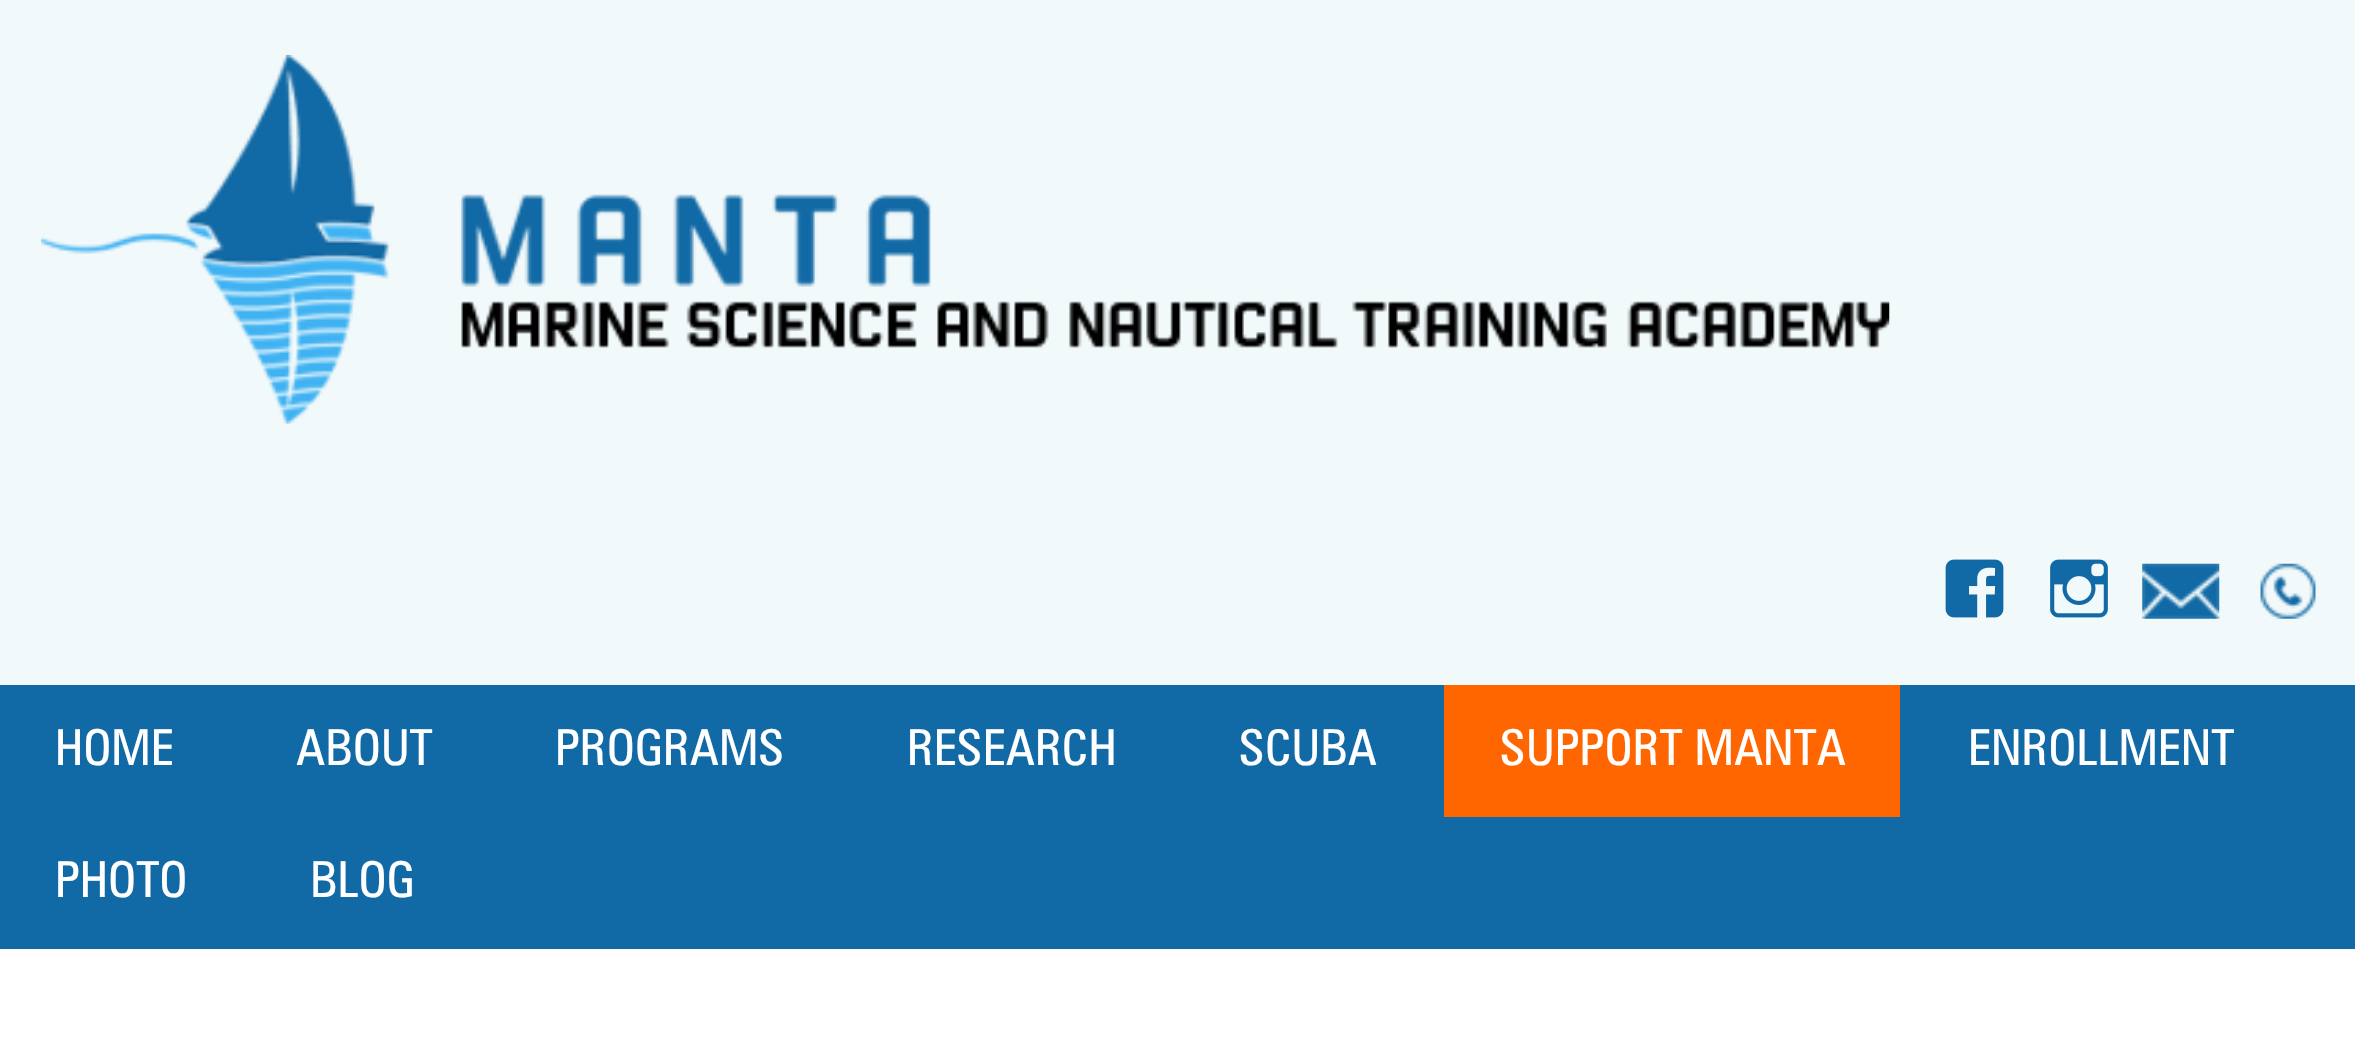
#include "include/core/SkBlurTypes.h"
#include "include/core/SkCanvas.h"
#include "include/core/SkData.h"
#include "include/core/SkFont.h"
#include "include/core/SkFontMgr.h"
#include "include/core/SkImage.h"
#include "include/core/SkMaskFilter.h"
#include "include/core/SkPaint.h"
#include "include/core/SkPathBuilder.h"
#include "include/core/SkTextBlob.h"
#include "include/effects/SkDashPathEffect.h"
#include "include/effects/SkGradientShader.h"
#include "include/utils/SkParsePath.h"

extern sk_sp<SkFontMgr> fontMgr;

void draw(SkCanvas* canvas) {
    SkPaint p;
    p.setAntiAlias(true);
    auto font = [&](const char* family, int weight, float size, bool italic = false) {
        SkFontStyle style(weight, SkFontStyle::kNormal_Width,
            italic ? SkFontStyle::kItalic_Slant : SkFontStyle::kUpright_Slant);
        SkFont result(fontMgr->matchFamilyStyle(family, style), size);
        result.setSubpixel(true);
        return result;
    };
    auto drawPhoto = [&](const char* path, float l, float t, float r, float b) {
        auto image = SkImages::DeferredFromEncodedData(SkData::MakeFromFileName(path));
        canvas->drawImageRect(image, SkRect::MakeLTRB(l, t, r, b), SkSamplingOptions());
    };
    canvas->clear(0xFFFFFFFF);
    p.setColor(0xFFF2F9FA);
    canvas->drawRect(SkRect::MakeLTRB(0, 0, 2355, 685), p);
    drawPhoto("media/1.png", 41, 55, 1890, 424);
    drawPhoto("media/2.png", 1945, 559, 2004, 618);
    drawPhoto("media/3.png", 2050, 559, 2108, 618);
    drawPhoto("media/4.png", 2142, 563, 2220, 619);
    drawPhoto("media/5.png", 2260, 563, 2316, 619);
    p.setColor(0xFF1169A5);
    canvas->drawRect(SkRect::MakeLTRB(0, 685, 2355, 949), p);
    auto font1 = font("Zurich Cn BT", 400, 49.5f);
    p.setColor(0xFFFFFFFF);
    {
        const struct { const char* s; float x, y; } items[] = {
            {"HOME", 55, 765},
            {"ABOUT", 296, 765},
            {"PROGRAMS", 555, 765},
            {"RESEARCH", 907, 765},
            {"SCUBA", 1239, 765},
        };
        for (auto [s, x, y] : items) {
            canvas->drawString(s, x, y, font1, p);
        }
    }
    p.setColor(0xFFFF6600);
    canvas->drawRect(SkRect::MakeLTRB(1444, 685, 1900, 817), p);
    p.setColor(0xFFFFFFFF);
    {
        const struct { const char* s; float x, y; } items[] = {
            {"SUPPORT MANTA", 1500, 765},
            {"ENROLLMENT", 1968, 765},
            {"PHOTO", 55, 897},
            {"BLOG", 310, 897},
        };
        for (auto [s, x, y] : items) {
            canvas->drawString(s, x, y, font1, p);
        }
    }
}
